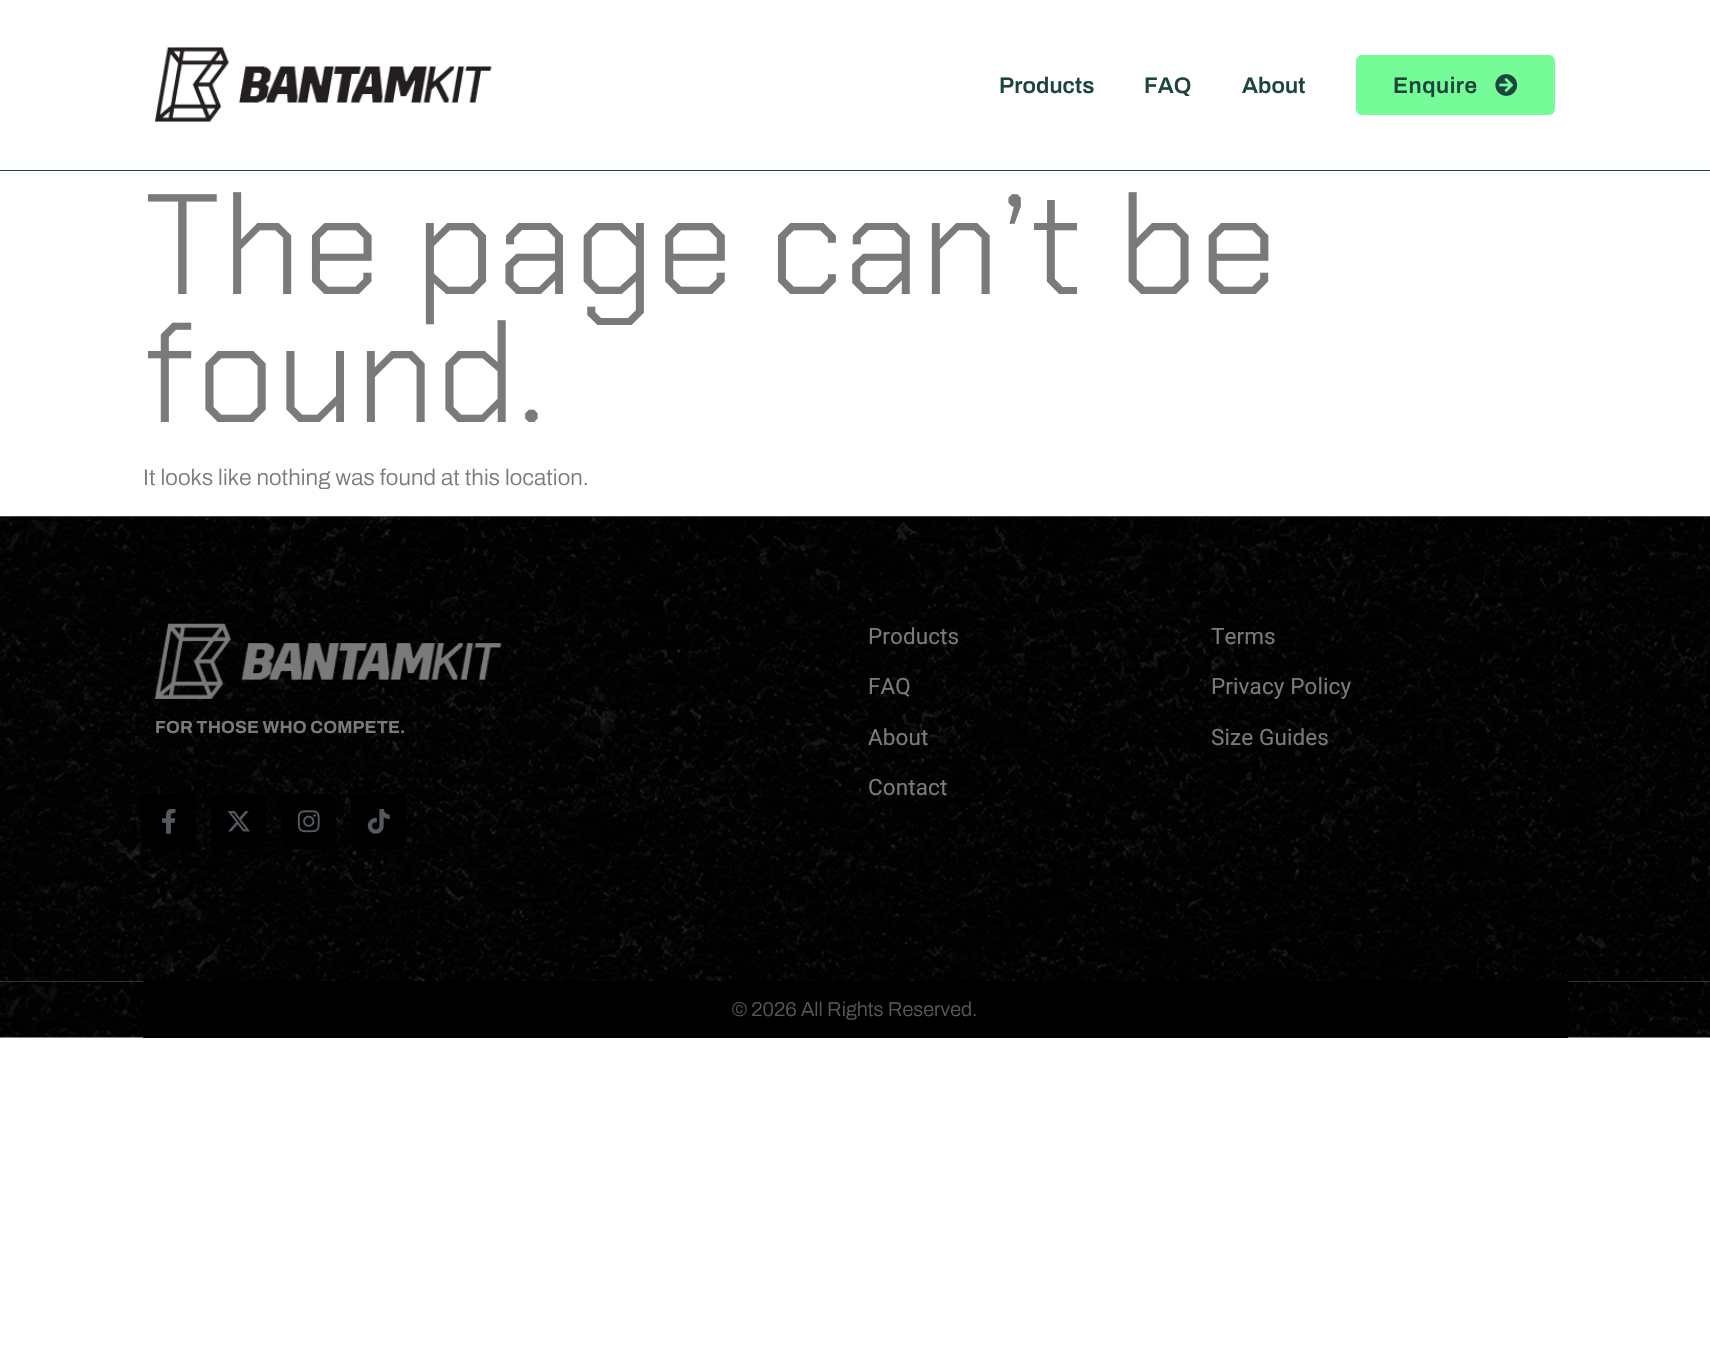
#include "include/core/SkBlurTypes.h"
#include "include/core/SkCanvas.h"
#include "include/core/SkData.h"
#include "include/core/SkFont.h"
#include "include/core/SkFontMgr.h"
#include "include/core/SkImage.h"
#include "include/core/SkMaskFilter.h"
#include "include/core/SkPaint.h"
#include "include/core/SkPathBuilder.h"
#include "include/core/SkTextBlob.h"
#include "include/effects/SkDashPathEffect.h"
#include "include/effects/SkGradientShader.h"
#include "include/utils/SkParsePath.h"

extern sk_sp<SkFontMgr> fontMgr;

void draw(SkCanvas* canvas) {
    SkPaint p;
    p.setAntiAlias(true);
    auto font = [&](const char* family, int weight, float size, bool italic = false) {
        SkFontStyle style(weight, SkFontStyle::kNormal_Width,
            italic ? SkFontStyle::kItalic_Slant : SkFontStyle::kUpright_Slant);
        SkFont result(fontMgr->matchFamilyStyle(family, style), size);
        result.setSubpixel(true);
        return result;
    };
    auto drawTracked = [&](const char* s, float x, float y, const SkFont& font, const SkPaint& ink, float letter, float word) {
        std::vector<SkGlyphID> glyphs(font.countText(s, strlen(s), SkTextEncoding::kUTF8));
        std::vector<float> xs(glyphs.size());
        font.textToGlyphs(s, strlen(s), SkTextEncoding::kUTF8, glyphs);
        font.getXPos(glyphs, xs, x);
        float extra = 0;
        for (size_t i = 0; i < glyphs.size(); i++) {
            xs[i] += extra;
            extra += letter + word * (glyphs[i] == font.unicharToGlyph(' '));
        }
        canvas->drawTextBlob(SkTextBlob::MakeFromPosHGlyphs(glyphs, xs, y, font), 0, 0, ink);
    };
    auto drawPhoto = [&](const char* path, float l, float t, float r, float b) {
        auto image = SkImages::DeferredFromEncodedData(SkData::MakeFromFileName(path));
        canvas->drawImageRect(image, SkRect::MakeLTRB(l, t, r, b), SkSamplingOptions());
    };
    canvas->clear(0xFFFFFFFF);
    p.setColor(0xFF1E453D);
    canvas->drawRect(SkRect::MakeLTRB(0, 170, 1710, 171), p);
    drawPhoto("media/1.png", 155, 47, 492, 122);
    auto font1 = font("Archivo", 600, 22.5f);
    {
        const struct { const char* s; float x, y; } items[] = {
            {"Products", 999, 93},
            {"FAQ", 1144, 93},
            {"About", 1242, 93},
        };
        for (auto [s, x, y] : items) {
            drawTracked(s, x, y, font1, p, 0.1f, 0);
        }
    }
    p.setColor(0xFF75FB97);
    canvas->drawRoundRect(SkRect::MakeLTRB(1356, 55, 1555, 115), 6, 6, p);
    p.setColor(0xFF1E453D);
    drawTracked("Enquire", 1393, 93, font1, p, 0.5f, 0);
    drawPhoto("media/2.png", 1495, 74, 1518, 96);
    auto font2 = font("Chakra Petch", 300, 142.5f);
    p.setColor(0xFF7A7A7A);
    drawTracked("The page can’t be", 143, 294, font2, p, 0.1f, 0);
    drawTracked("found.", 143, 422, font2, p, 0.1f, 0);
    auto font3 = font("Archivo", 300, 22.5f);
    drawTracked("It looks like nothing was found at this location.", 143, 485, font3, p, 0.1f, 0);
    drawPhoto("media/3.png", 0, 516, 1710, 982);
    drawPhoto("media/4.png", 155, 623, 502, 699);
    auto font4 = font("Archivo", 700, 17.5f);
    drawTracked("FOR THOSE WHO COMPETE.", 155, 733, font4, p, 0.1f, 0);
    p.setColor(0xFF000000);
    canvas->drawRoundRect(SkRect::MakeLTRB(141, 794, 196, 849), 5, 5, p);
    drawPhoto("media/5.png", 162, 809, 176, 834);
    canvas->drawRoundRect(SkRect::MakeLTRB(211, 794, 266, 849), 5, 5, p);
    drawPhoto("media/6.png", 227, 811, 250, 832);
    canvas->drawRoundRect(SkRect::MakeLTRB(281, 794, 336, 849), 5, 5, p);
    drawPhoto("media/7.png", 297, 810, 320, 833);
    canvas->drawRoundRect(SkRect::MakeLTRB(351, 794, 406, 849), 5, 5, p);
    drawPhoto("media/8.png", 367, 809, 390, 834);
    auto font5 = font("Roboto", 400, 22.5f);
    p.setColor(0xFF7A7A7A);
    {
        const struct { const char* s; float x, y; } items[] = {
            {"Products", 868, 644},
            {"FAQ", 868, 694},
            {"About", 868, 745},
            {"Contact", 868, 795},
            {"Terms", 1211, 644},
            {"Privacy Policy", 1211, 694},
            {"Size Guides", 1211, 745},
        };
        for (auto [s, x, y] : items) {
            drawTracked(s, x, y, font5, p, 0.1f, 0);
        }
    }
    drawPhoto("media/9.png", 0, 981, 1710, 1038);
    p.setColor(0xFF000000);
    canvas->drawRect(SkRect::MakeLTRB(143, 981, 1568, 1038), p);
    auto font6 = font("Archivo", 300, 20);
    p.setColor(0xFF54595F);
    canvas->drawString("© 2026 All Rights Reserved.", 732, 1016, font6, p);
}
